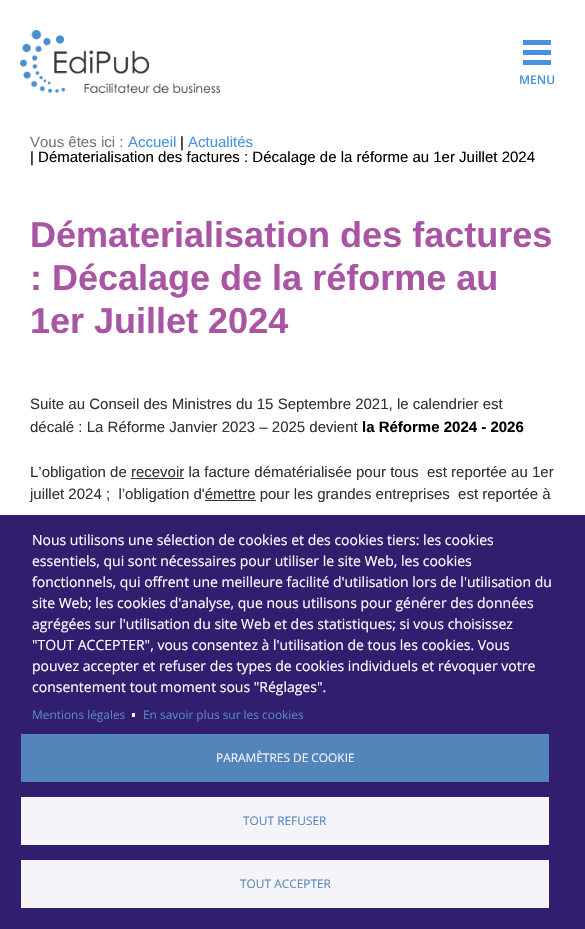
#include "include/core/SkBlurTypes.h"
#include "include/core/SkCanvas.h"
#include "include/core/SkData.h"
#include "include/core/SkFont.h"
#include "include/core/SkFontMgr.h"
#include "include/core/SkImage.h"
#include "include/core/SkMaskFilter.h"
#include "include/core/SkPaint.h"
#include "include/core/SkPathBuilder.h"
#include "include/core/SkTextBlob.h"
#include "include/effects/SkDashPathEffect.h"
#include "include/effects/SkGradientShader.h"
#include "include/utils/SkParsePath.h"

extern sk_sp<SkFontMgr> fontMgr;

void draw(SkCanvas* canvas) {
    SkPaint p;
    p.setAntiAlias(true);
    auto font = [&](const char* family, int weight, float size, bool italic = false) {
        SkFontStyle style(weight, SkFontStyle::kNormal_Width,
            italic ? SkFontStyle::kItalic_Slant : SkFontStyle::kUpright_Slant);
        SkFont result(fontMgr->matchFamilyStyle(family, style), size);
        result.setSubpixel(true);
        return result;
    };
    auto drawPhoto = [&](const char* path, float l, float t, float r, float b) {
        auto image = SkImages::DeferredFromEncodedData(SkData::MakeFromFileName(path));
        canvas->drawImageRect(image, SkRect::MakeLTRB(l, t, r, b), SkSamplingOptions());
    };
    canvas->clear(0xFFFFFFFF);
    drawPhoto("media/1.png", 20, 30, 220, 93);
    {
        const struct { float l, t, r, b; SkColor color; } items[] = {
            {523, 40, 551, 45, 0xFF4891DC},
            {523, 50, 551, 55, 0xFF4891DC},
            {523, 60, 551, 65, 0xFF4891DC},
        };
        for (auto [l, t, r, b, color] : items) {
            p.setColor(color);
            canvas->drawRect(SkRect::MakeLTRB(l, t, r, b), p);
        }
    }
    auto font1 = font("Open Sans", 600, 12);
    canvas->drawString("MENU", 519, 84, font1, p);
    auto font2 = font("Liberation Sans", 400, 15);
    p.setColor(0xFF777777);
    canvas->drawString("Vous êtes ici :", 30, 147, font2, p);
    p.setColor(0xFF4891DC);
    canvas->drawString("Accueil", 128, 147, font2, p);
    p.setColor(0xFF000000);
    canvas->drawString("|", 180, 147, font2, p);
    p.setColor(0xFF4891DC);
    canvas->drawString("Actualités", 188, 147, font2, p);
    p.setColor(0xFF000000);
    canvas->drawString("| Dématerialisation des factures : Décalage de la réforme au 1er Juillet 2024", 30, 162, font2, p);
    auto font3 = font("Liberation Sans", 700, 36);
    p.setColor(0xFFA955A3);
    {
        const struct { const char* s; float x, y; } items[] = {
            {"Dématerialisation des factures", 30, 247},
            {": Décalage de la réforme au", 30, 290},
            {"1er Juillet 2024", 30, 333},
        };
        for (auto [s, x, y] : items) {
            canvas->drawString(s, x, y, font3, p);
        }
    }
    p.setColor(0xFF333333);
    canvas->drawString("Suite au Conseil des Ministres du 15 Septembre 2021, le calendrier est", 30, 409, font2, p);
    canvas->drawString("décalé : La Réforme Janvier 2023 – 2025 devient", 30, 432, font2, p);
    auto font4 = font("Liberation Sans", 700, 15);
    p.setColor(0xFF000000);
    canvas->drawString("la Réforme 2024 - 2026", 362, 432, font4, p);
    p.setColor(0xFF333333);
    canvas->drawString("L’obligation de recevoir la facture dématérialisée pour tous  est reportée au 1er", 30, 477, font2, p);
    canvas->drawRect(SkRect::MakeLTRB(131, 478, 184, 479), p);
    canvas->drawString("juillet 2024 ;  l’obligation d'émettre pour les grandes entreprises  est reportée à", 30, 499, font2, p);
    canvas->drawRect(SkRect::MakeLTRB(205, 500, 256, 501), p);
    p.setColor(0xFF321E6E);
    canvas->drawRect(SkRect::MakeLTRB(0, 515, 585, 929), p);
    auto font5 = font("Open Sans", 400, 14);
    p.setColor(0xFFFFFFFF);
    {
        const struct { const char* s; float x, y; } items[] = {
            {"Nous utilisons une sélection de cookies et des cookies tiers: les cookies", 32, 545},
            {"essentiels, qui sont nécessaires pour utiliser le site Web, les cookies", 32, 566},
            {"fonctionnels, qui offrent une meilleure facilité d'utilisation lors de l'utilisation du", 32, 587},
            {"site Web; les cookies d'analyse, que nous utilisons pour générer des données", 32, 608},
            {"agrégées sur l'utilisation du site Web et des statistiques; si vous choisissez", 32, 629},
            {"\"TOUT ACCEPTER\", vous consentez à l'utilisation de tous les cookies. Vous", 32, 650},
            {"pouvez accepter et refuser des types de cookies individuels et révoquer votre", 32, 671},
            {"consentement tout moment sous \"Réglages\".", 32, 692},
        };
        for (auto [s, x, y] : items) {
            canvas->drawString(s, x, y, font5, p);
        }
    }
    auto font6 = font("Open Sans", 400, 11.9f);
    p.setColor(0xFF5589BE);
    canvas->drawString("Mentions légales", 32, 719, font6, p);
    p.setColor(0xFFFFFFFF);
    canvas->drawRect(SkRect::MakeLTRB(132, 713, 135, 717), p);
    p.setColor(0xFF5589BE);
    canvas->drawString("En savoir plus sur les cookies", 143, 719, font6, p);
    p.setColor(0xFF5384BA);
    canvas->drawRect(SkRect::MakeLTRB(21, 734, 549, 782), p);
    p.setColor(0xFFF5F4F8);
    canvas->drawString("PARAMÈTRES DE COOKIE", 216, 762, font6, p);
    canvas->drawRect(SkRect::MakeLTRB(21, 797, 549, 845), p);
    p.setColor(0xFF5589BE);
    canvas->drawString("TOUT REFUSER", 243, 825, font6, p);
    p.setColor(0xFFF5F4F8);
    canvas->drawRect(SkRect::MakeLTRB(21, 860, 549, 908), p);
    p.setColor(0xFF5589BE);
    canvas->drawString("TOUT ACCEPTER", 240, 888, font6, p);
}
